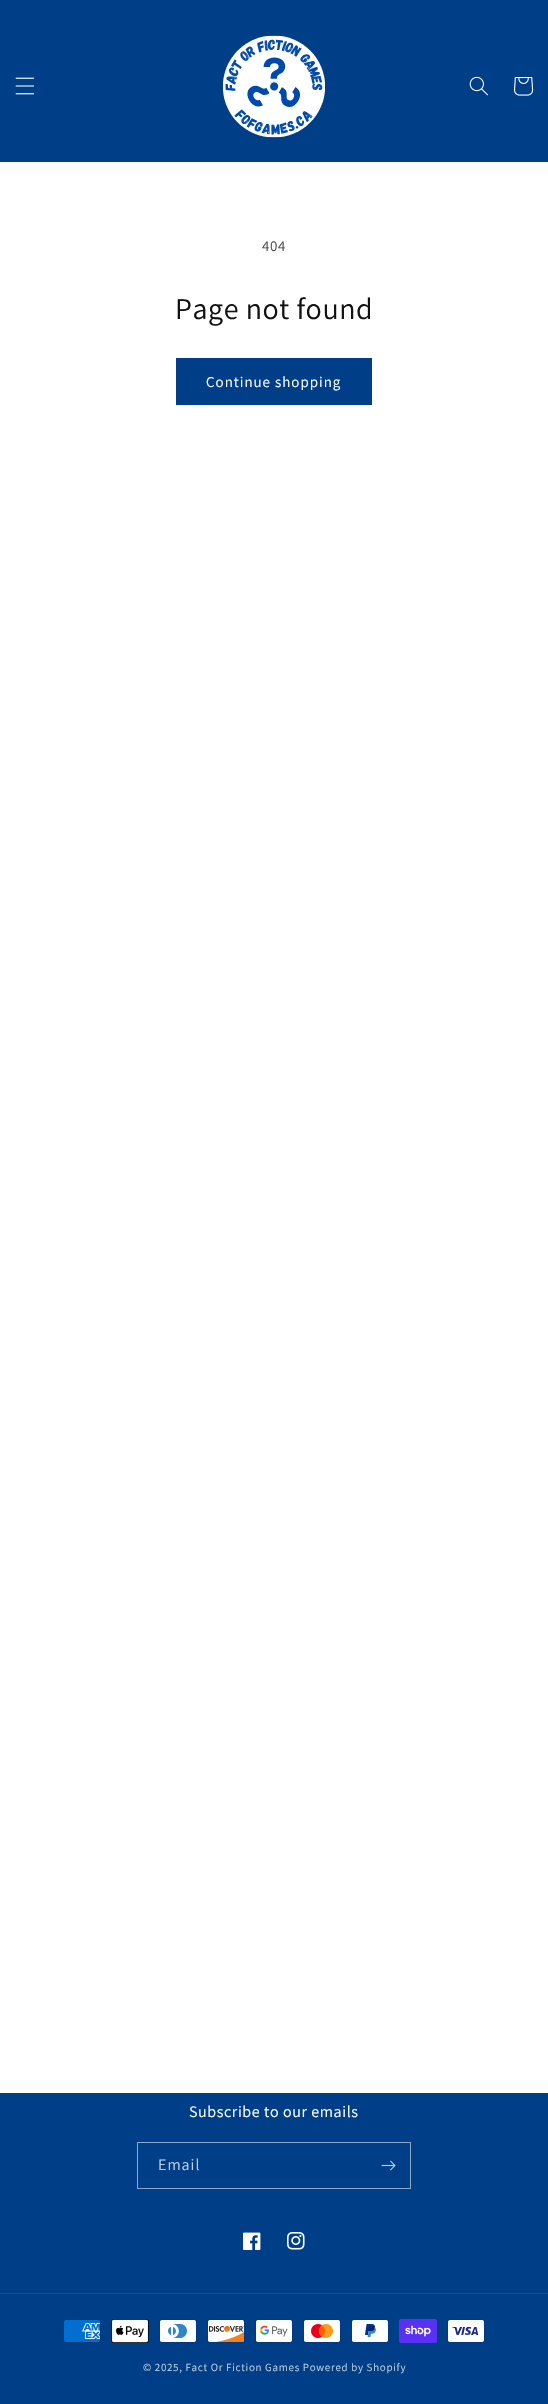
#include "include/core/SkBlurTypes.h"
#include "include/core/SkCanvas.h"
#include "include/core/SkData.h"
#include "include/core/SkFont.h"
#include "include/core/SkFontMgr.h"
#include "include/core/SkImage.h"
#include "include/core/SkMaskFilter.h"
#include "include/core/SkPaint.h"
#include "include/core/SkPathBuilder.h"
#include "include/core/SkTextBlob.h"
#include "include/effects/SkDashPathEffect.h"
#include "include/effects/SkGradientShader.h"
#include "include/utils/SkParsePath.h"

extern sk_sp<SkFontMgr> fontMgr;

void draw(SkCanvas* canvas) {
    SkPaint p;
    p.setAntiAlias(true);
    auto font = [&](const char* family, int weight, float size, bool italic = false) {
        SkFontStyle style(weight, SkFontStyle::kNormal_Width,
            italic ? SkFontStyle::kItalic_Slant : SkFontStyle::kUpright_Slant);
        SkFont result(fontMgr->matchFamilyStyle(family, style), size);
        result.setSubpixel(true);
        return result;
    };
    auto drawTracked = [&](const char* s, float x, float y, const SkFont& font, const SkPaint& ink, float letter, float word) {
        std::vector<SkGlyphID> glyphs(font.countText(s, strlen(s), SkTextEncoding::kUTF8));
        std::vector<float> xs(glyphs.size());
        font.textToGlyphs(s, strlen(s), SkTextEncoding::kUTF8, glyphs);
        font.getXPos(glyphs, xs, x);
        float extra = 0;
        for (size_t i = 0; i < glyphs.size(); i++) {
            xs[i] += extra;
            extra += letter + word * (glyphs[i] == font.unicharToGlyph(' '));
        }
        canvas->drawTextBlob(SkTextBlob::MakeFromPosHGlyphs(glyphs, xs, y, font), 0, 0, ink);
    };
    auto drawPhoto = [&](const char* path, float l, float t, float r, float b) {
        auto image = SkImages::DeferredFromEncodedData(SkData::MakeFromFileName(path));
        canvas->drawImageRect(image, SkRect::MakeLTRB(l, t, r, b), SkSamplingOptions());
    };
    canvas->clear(0xFFFFFFFF);
    p.setColor(0xFF003F87);
    canvas->drawRect(SkRect::MakeLTRB(0, 0, 548, 162), p);
    drawPhoto("media/1.png", 15, 77, 35, 95);
    drawPhoto("media/2.png", 223, 35, 325, 138);
    drawPhoto("media/3.png", 469, 76, 488, 96);
    drawPhoto("media/4.png", 514, 77, 534, 96);
    auto font1 = font("Assistant", 400, 15);
    p.setColor(0xFF4D4D4D);
    drawTracked("404", 262, 251, font1, p, 0.6f, 0);
    auto font2 = font("Assistant", 400, 30);
    p.setColor(0xFF121212);
    drawTracked("Page not found", 175, 319, font2, p, 0.6f, 0);
    p.setColor(0xFF003F87);
    canvas->drawRect(SkRect::MakeLTRB(176, 358, 372, 405), p);
    p.setColor(0xFFFFFFFF);
    drawTracked("Continue shopping", 206, 387, font1, p, 1, 0);
    p.setColor(0xFF003F87);
    canvas->drawRect(SkRect::MakeLTRB(0, 2093, 548, 2404), p);
    auto font3 = font("Assistant", 400, 16);
    p.setColor(0xFFFFFFFF);
    drawTracked("Subscribe to our emails", 189, 2117, font3, p, 0.6f, 0);
    p.setStyle(SkPaint::kStroke_Style);
    p.setStrokeWidth(1);
    p.setColor(0xFF8CA9C9);
    canvas->drawRect(SkRect::MakeLTRB(137.5f, 2142.5f, 410.5f, 2188.5f), p);
    p.setStyle(SkPaint::kFill_Style);
    p.setColor(0xFFBFCFE1);
    drawTracked("Email", 158, 2170, font3, p, 1, 0);
    drawPhoto("media/5.png", 381, 2160, 396, 2171);
    drawPhoto("media/6.png", 243, 2232, 261, 2250);
    drawPhoto("media/7.png", 287, 2232, 305, 2250);
    p.setColor(0xFF144E91);
    canvas->drawRect(SkRect::MakeLTRB(0, 2293, 548, 2294), p);
    drawPhoto("media/8.png", 63, 2319, 101, 2343);
    drawPhoto("media/9.png", 111, 2319, 149, 2343);
    drawPhoto("media/10.png", 159, 2319, 197, 2343);
    drawPhoto("media/11.png", 207, 2319, 245, 2343);
    drawPhoto("media/12.png", 255, 2319, 293, 2343);
    drawPhoto("media/13.png", 303, 2319, 341, 2343);
    drawPhoto("media/14.png", 351, 2319, 389, 2343);
    drawPhoto("media/15.png", 399, 2319, 437, 2343);
    drawPhoto("media/16.png", 447, 2319, 485, 2343);
    auto font4 = font("Assistant", 400, 11);
    p.setColor(0xFFBFCFE1);
    drawTracked("© 2025, Fact Or Fiction Games Powered by Shopify", 143, 2371, font4, p, 0.7f, 0);
}
